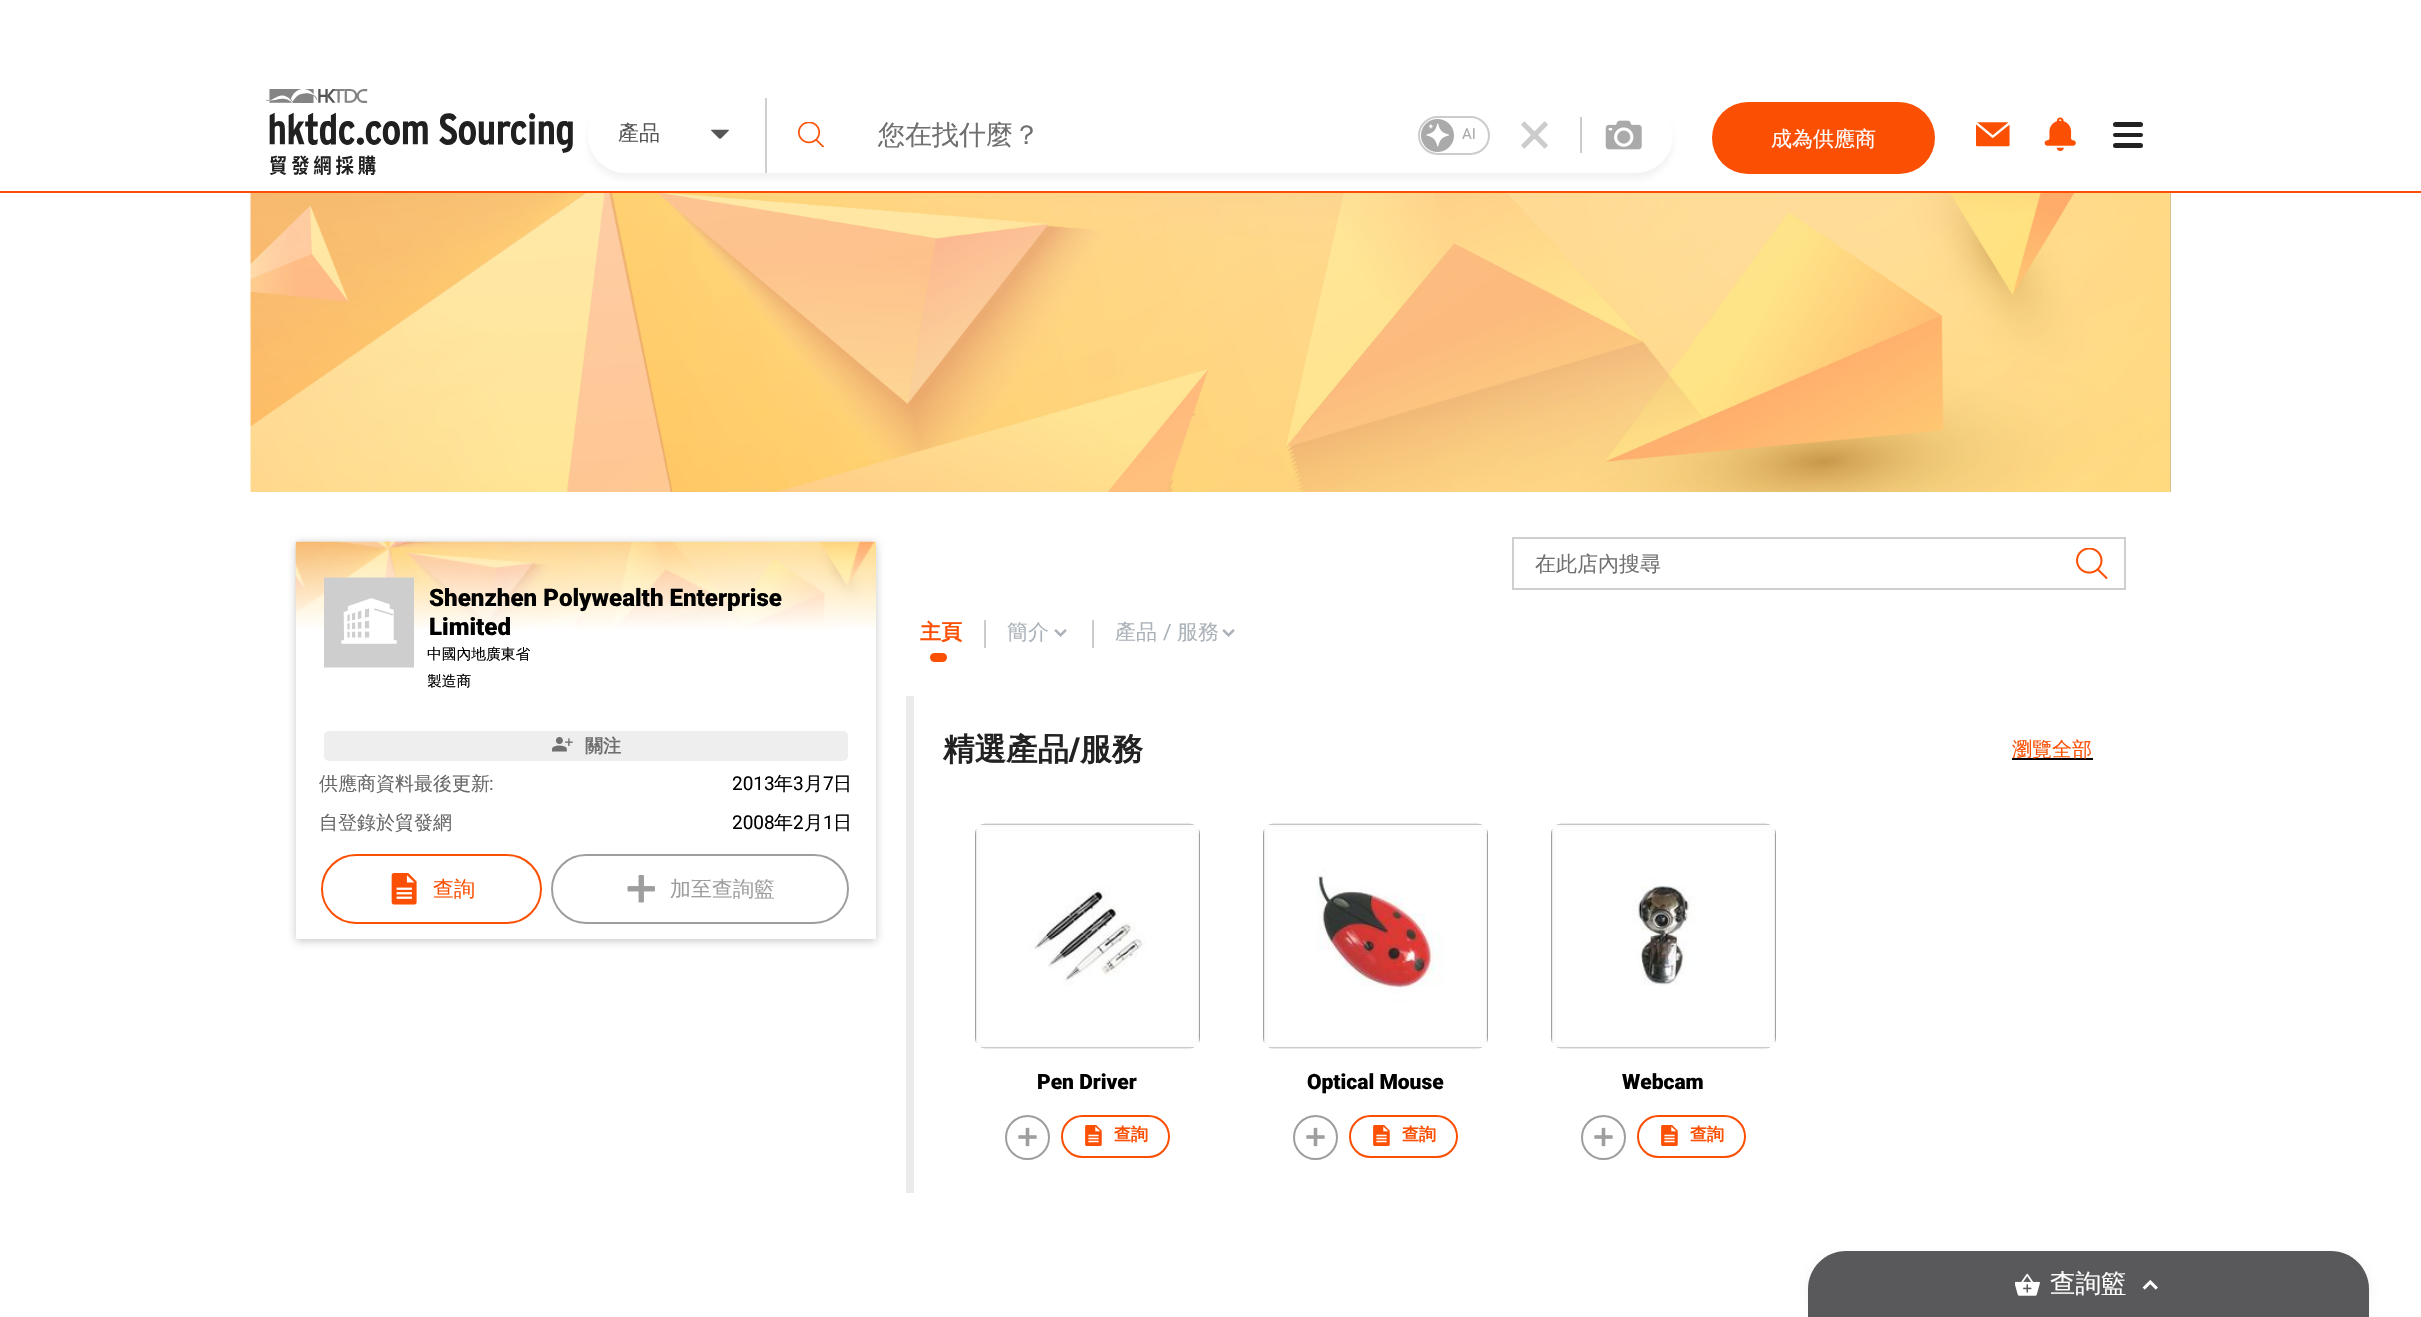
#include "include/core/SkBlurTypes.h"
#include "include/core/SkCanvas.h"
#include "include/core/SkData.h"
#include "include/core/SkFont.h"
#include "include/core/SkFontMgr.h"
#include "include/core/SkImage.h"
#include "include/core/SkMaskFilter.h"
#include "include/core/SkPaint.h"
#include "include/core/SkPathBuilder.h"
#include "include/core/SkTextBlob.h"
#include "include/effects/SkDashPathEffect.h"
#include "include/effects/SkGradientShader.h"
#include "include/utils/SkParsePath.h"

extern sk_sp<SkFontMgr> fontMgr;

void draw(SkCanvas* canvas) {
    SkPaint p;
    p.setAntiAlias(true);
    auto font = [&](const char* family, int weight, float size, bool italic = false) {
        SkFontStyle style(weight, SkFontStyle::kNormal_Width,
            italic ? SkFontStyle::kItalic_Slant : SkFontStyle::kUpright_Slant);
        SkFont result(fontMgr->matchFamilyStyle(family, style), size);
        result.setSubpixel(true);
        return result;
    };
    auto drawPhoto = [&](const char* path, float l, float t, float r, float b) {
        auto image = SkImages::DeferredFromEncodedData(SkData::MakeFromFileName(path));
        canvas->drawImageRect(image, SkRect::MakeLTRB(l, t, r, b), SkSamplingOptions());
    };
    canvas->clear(0xFFFFFFFF);
    p.setColor(0xFFFB5004);
    canvas->drawRect(SkRect::MakeLTRB(0, 191, 2421, 193), p);
    drawPhoto("media/1.png", 266, 89, 573, 175);
    canvas->save();
    canvas->clipPath(SkPathBuilder(SkPathFillType::kEvenOdd).moveTo(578, 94).lineTo(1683, 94).lineTo(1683, 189).lineTo(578, 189).close().moveTo(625.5f, 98).lineTo(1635.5f, 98).cubicTo(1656, 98, 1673, 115, 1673, 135.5f).cubicTo(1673, 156, 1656, 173, 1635.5f, 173).lineTo(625.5f, 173).cubicTo(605, 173, 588, 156, 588, 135.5f).cubicTo(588, 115, 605, 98, 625.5f, 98).close().detach(), true);
    p.setColor(0x1A7F7F7F);
    p.setMaskFilter(SkMaskFilter::MakeBlur(kNormal_SkBlurStyle, 3));
    canvas->drawRoundRect(SkRect::MakeLTRB(588, 104, 1673, 179), 37.5f, 37.5f, p);
    p.setMaskFilter(nullptr);
    canvas->restore();
    p.setColor(0xFFCFCFCF);
    canvas->drawRect(SkRect::MakeLTRB(765, 98, 767, 173), p);
    auto font1 = font("WenQuanYi Zen Hei", 500, 21);
    p.setColor(0xFF555555);
    canvas->drawString("產品", 618, 140, font1, p);
    drawPhoto("media/2.png", 711, 129, 729, 139);
    drawPhoto("media/3.png", 798, 122, 825, 147);
    auto font2 = font("WenQuanYi Zen Hei", 500, 27);
    p.setColor(0xFF707070);
    canvas->drawString("您在找什麼？", 878, 144, font2, p);
    p.setStyle(SkPaint::kStroke_Style);
    p.setStrokeWidth(2);
    p.setColor(0xFFCCCCCC);
    canvas->drawRoundRect(SkRect::MakeLTRB(1419, 117, 1489, 154), 18.5f, 18.5f, p);
    drawPhoto("media/4.png", 1421, 119, 1454, 152);
    auto font3 = font("Roboto", 400, 15);
    p.setStyle(SkPaint::kFill_Style);
    p.setColor(0xFFAAAAAA);
    canvas->drawString("AI", 1462, 139, font3, p);
    drawPhoto("media/5.png", 1521, 121, 1548, 149);
    p.setColor(0xFFCCCCCC);
    canvas->drawRect(SkRect::MakeLTRB(1580, 117, 1582, 153), p);
    drawPhoto("media/6.png", 1605, 120, 1642, 150);
    p.setColor(0xFFFB5004);
    canvas->drawRoundRect(SkRect::MakeLTRB(1712, 102, 1935, 174), 36, 36, p);
    p.setColor(0xFFFFFFFF);
    canvas->drawString("成為供應商", 1771, 146, font1, p);
    drawPhoto("media/7.png", 1976, 122, 2010, 147);
    drawPhoto("media/8.png", 2044, 117, 2076, 151);
    p.setColor(0xFF222222);
    canvas->drawRoundRect(SkRect::MakeLTRB(2113, 122, 2143, 127), 2.5f, 2.5f, p);
    canvas->drawRoundRect(SkRect::MakeLTRB(2113, 133, 2143, 137), 2, 2, p);
    canvas->drawRoundRect(SkRect::MakeLTRB(2113, 143, 2143, 148), 2.5f, 2.5f, p);
    p.setColor(0xFFA9A9A9);
    canvas->drawRect(SkRect::MakeLTRB(2170, 193, 2171, 492), p);
    drawPhoto("media/9.png", 250, 193, 2171, 492);
    p.setColor(0x38070001);
    p.setMaskFilter(SkMaskFilter::MakeBlur(kNormal_SkBlurStyle, 4));
    canvas->drawRoundRect(SkRect::MakeLTRB(296, 543, 876, 941), 1.5f, 1.5f, p);
    p.setMaskFilter(nullptr);
    p.setColor(0xFFFFFFFF);
    canvas->drawRoundRect(SkRect::MakeLTRB(296, 542, 876, 939), 1.5f, 1.5f, p);
    drawPhoto("media/10.png", 295, 541, 876, 629);
    drawPhoto("media/11.png", 324, 577, 414, 668);
    auto font4 = font("Roboto", 900, 24.1f);
    p.setColor(0xFF000000);
    canvas->drawString("Shenzhen Polywealth Enterprise", 429, 606, font4, p);
    canvas->drawString("Limited", 429, 635, font4, p);
    auto font5 = font("WenQuanYi Zen Hei", 500, 14.75f);
    canvas->drawString("中國內地廣東省", 427, 659, font5, p);
    canvas->save();
    canvas->clipRect(SkRect::MakeLTRB(428, 672, 852, 692));
    canvas->drawString("製造商", 427, 686, font5, p);
    canvas->restore();
    p.setColor(0xFFEEEEEE);
    canvas->drawRoundRect(SkRect::MakeLTRB(324, 731, 848, 761), 5, 5, p);
    drawPhoto("media/12.png", 552, 737, 573, 752);
    auto font6 = font("WenQuanYi Zen Hei", 700, 18);
    p.setColor(0xFF707070);
    canvas->drawString("關注", 585, 752, font6, p);
    auto font7 = font("WenQuanYi Zen Hei", 500, 19);
    p.setColor(0xFF696969);
    canvas->drawString("供應商資料最後更新", 319, 790, font7, p);
    auto font8 = font("Roboto", 400, 19);
    canvas->drawString(":", 489, 790, font8, p);
    p.setColor(0xFF000000);
    canvas->drawString("2013", 732, 790, font8, p);
    canvas->drawString("年", 774, 790, font7, p);
    canvas->drawString("3", 793, 790, font8, p);
    canvas->drawString("月", 804, 790, font7, p);
    canvas->drawString("7", 823, 790, font8, p);
    canvas->drawString("日", 833, 790, font7, p);
    p.setColor(0xFF696969);
    canvas->drawString("自登錄於貿發網", 319, 829, font7, p);
    p.setColor(0xFF000000);
    canvas->drawString("2008", 732, 829, font8, p);
    canvas->drawString("年", 774, 829, font7, p);
    canvas->drawString("2", 793, 829, font8, p);
    canvas->drawString("月", 804, 829, font7, p);
    canvas->drawString("1", 823, 829, font8, p);
    canvas->drawString("日", 833, 829, font7, p);
    p.setStyle(SkPaint::kStroke_Style);
    p.setColor(0xFFFB5004);
    canvas->drawRoundRect(SkRect::MakeLTRB(322, 855, 541, 923), 34, 34, p);
    drawPhoto("media/13.png", 391, 873, 417, 905);
    p.setStyle(SkPaint::kFill_Style);
    canvas->drawString("查詢", 433, 896, font1, p);
    p.setStyle(SkPaint::kStroke_Style);
    p.setColor(0xFF9E9E9E);
    canvas->drawRoundRect(SkRect::MakeLTRB(552, 855, 848, 923), 34, 34, p);
    drawPhoto("media/14.png", 627, 875, 655, 903);
    p.setStyle(SkPaint::kFill_Style);
    canvas->drawString("加至查詢籃", 670, 896, font1, p);
    p.setStyle(SkPaint::kStroke_Style);
    p.setColor(0xFFCFCFCF);
    canvas->drawRect(SkRect::MakeLTRB(1513, 538, 2125, 589), p);
    p.setStyle(SkPaint::kFill_Style);
    p.setColor(0xFF707070);
    canvas->drawString("在此店內搜尋", 1535, 571, font1, p);
    drawPhoto("media/15.png", 2076, 548, 2108, 579);
    auto font9 = font("WenQuanYi Zen Hei", 700, 21);
    p.setColor(0xFFFB5004);
    canvas->drawString("主頁", 920, 639, font9, p);
    canvas->drawRoundRect(SkRect::MakeLTRB(930, 653, 947, 662), 4.5f, 4.5f, p);
    p.setColor(0xFFCCCCCC);
    canvas->drawRect(SkRect::MakeLTRB(984, 620, 986, 648), p);
    p.setColor(0xFFABB2B9);
    canvas->drawString("簡介", 1007, 639, font1, p);
    drawPhoto("media/16.png", 1054, 629, 1067, 637);
    p.setColor(0xFFCCCCCC);
    canvas->drawRect(SkRect::MakeLTRB(1092, 620, 1094, 648), p);
    p.setColor(0xFFABB2B9);
    canvas->drawString("產品", 1115, 639, font1, p);
    auto font10 = font("Roboto", 400, 21);
    canvas->drawString("/", 1163, 639, font10, p);
    canvas->drawString("服務", 1177, 639, font1, p);
    drawPhoto("media/16.png", 1222, 629, 1235, 637);
    p.setColor(0xFFEBEBEB);
    canvas->drawRect(SkRect::MakeLTRB(906, 696, 914, 1193), p);
    auto font11 = font("WenQuanYi Zen Hei", 700, 31.5f);
    p.setColor(0xFF222222);
    canvas->drawString("精選產品", 943, 760, font11, p);
    auto font12 = font("Roboto", 900, 31.5f);
    canvas->drawString("/", 1069, 760, font12, p);
    canvas->drawString("服務", 1080, 760, font11, p);
    p.setColor(0xFF000000);
    canvas->drawRect(SkRect::MakeLTRB(2012, 758, 2093, 760), p);
    auto font13 = font("WenQuanYi Zen Hei", 500, 20);
    p.setColor(0xFFFB5004);
    canvas->drawString("瀏覽全部", 2012, 756, font13, p);
    drawPhoto("media/17.png", 975, 823, 1200, 1049);
    auto font14 = font("Roboto", 900, 21);
    p.setColor(0xFF000000);
    canvas->drawString("Pen Driver", 1037, 1089, font14, p);
    p.setStyle(SkPaint::kStroke_Style);
    p.setColor(0xFF9E9E9E);
    canvas->drawCircle(1027.5f, 1137.5f, 21.5f, p);
    drawPhoto("media/18.png", 1018, 1127, 1037, 1147);
    p.setColor(0xFFFB5004);
    canvas->drawRoundRect(SkRect::MakeLTRB(1062, 1116, 1169, 1157), 20.5f, 20.5f, p);
    drawPhoto("media/19.png", 1085, 1125, 1102, 1146);
    auto font15 = font("WenQuanYi Zen Hei", 700, 17);
    p.setStyle(SkPaint::kFill_Style);
    canvas->drawString("查詢", 1114, 1140, font15, p);
    drawPhoto("media/20.png", 1263, 823, 1488, 1049);
    p.setColor(0xFF000000);
    canvas->drawString("Optical Mouse", 1307, 1089, font14, p);
    p.setStyle(SkPaint::kStroke_Style);
    p.setColor(0xFF9E9E9E);
    canvas->drawCircle(1315.5f, 1137.5f, 21.5f, p);
    drawPhoto("media/18.png", 1306, 1127, 1325, 1147);
    p.setColor(0xFFFB5004);
    canvas->drawRoundRect(SkRect::MakeLTRB(1350, 1116, 1457, 1157), 20.5f, 20.5f, p);
    drawPhoto("media/19.png", 1373, 1125, 1390, 1146);
    p.setStyle(SkPaint::kFill_Style);
    canvas->drawString("查詢", 1402, 1140, font15, p);
    drawPhoto("media/21.png", 1551, 823, 1776, 1049);
    p.setColor(0xFF000000);
    canvas->drawString("Webcam", 1622, 1089, font14, p);
    p.setStyle(SkPaint::kStroke_Style);
    p.setColor(0xFF9E9E9E);
    canvas->drawCircle(1603.5f, 1137.5f, 21.5f, p);
    drawPhoto("media/18.png", 1594, 1127, 1613, 1147);
    p.setColor(0xFFFB5004);
    canvas->drawRoundRect(SkRect::MakeLTRB(1638, 1116, 1745, 1157), 20.5f, 20.5f, p);
    drawPhoto("media/19.png", 1661, 1125, 1678, 1146);
    p.setStyle(SkPaint::kFill_Style);
    canvas->drawString("查詢", 1690, 1140, font15, p);
    p.setColor(0x0F000000);
    p.setMaskFilter(SkMaskFilter::MakeBlur(kNormal_SkBlurStyle, 4));
    canvas->drawRoundRect(SkRect::MakeLTRB(1808, 1256, 2369, 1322), 38, 38, p);
    p.setMaskFilter(nullptr);
    p.setColor(0xFF59595B);
    canvas->drawPath(SkPathBuilder().moveTo(1846, 1251).lineTo(2331, 1251).cubicTo(2352, 1251, 2369, 1268, 2369, 1289).lineTo(2369, 1317).lineTo(1808, 1317).lineTo(1808, 1289).cubicTo(1808, 1268, 1825, 1251, 1846, 1251).close().detach(), p);
    drawPhoto("media/22.png", 2015, 1273, 2040, 1296);
    auto font16 = font("WenQuanYi Zen Hei", 500, 25.5f);
    p.setColor(0xFFFFFFFF);
    canvas->drawString("查詢籃", 2050, 1292, font16, p);
    drawPhoto("media/23.png", 2142, 1280, 2158, 1290);
}
